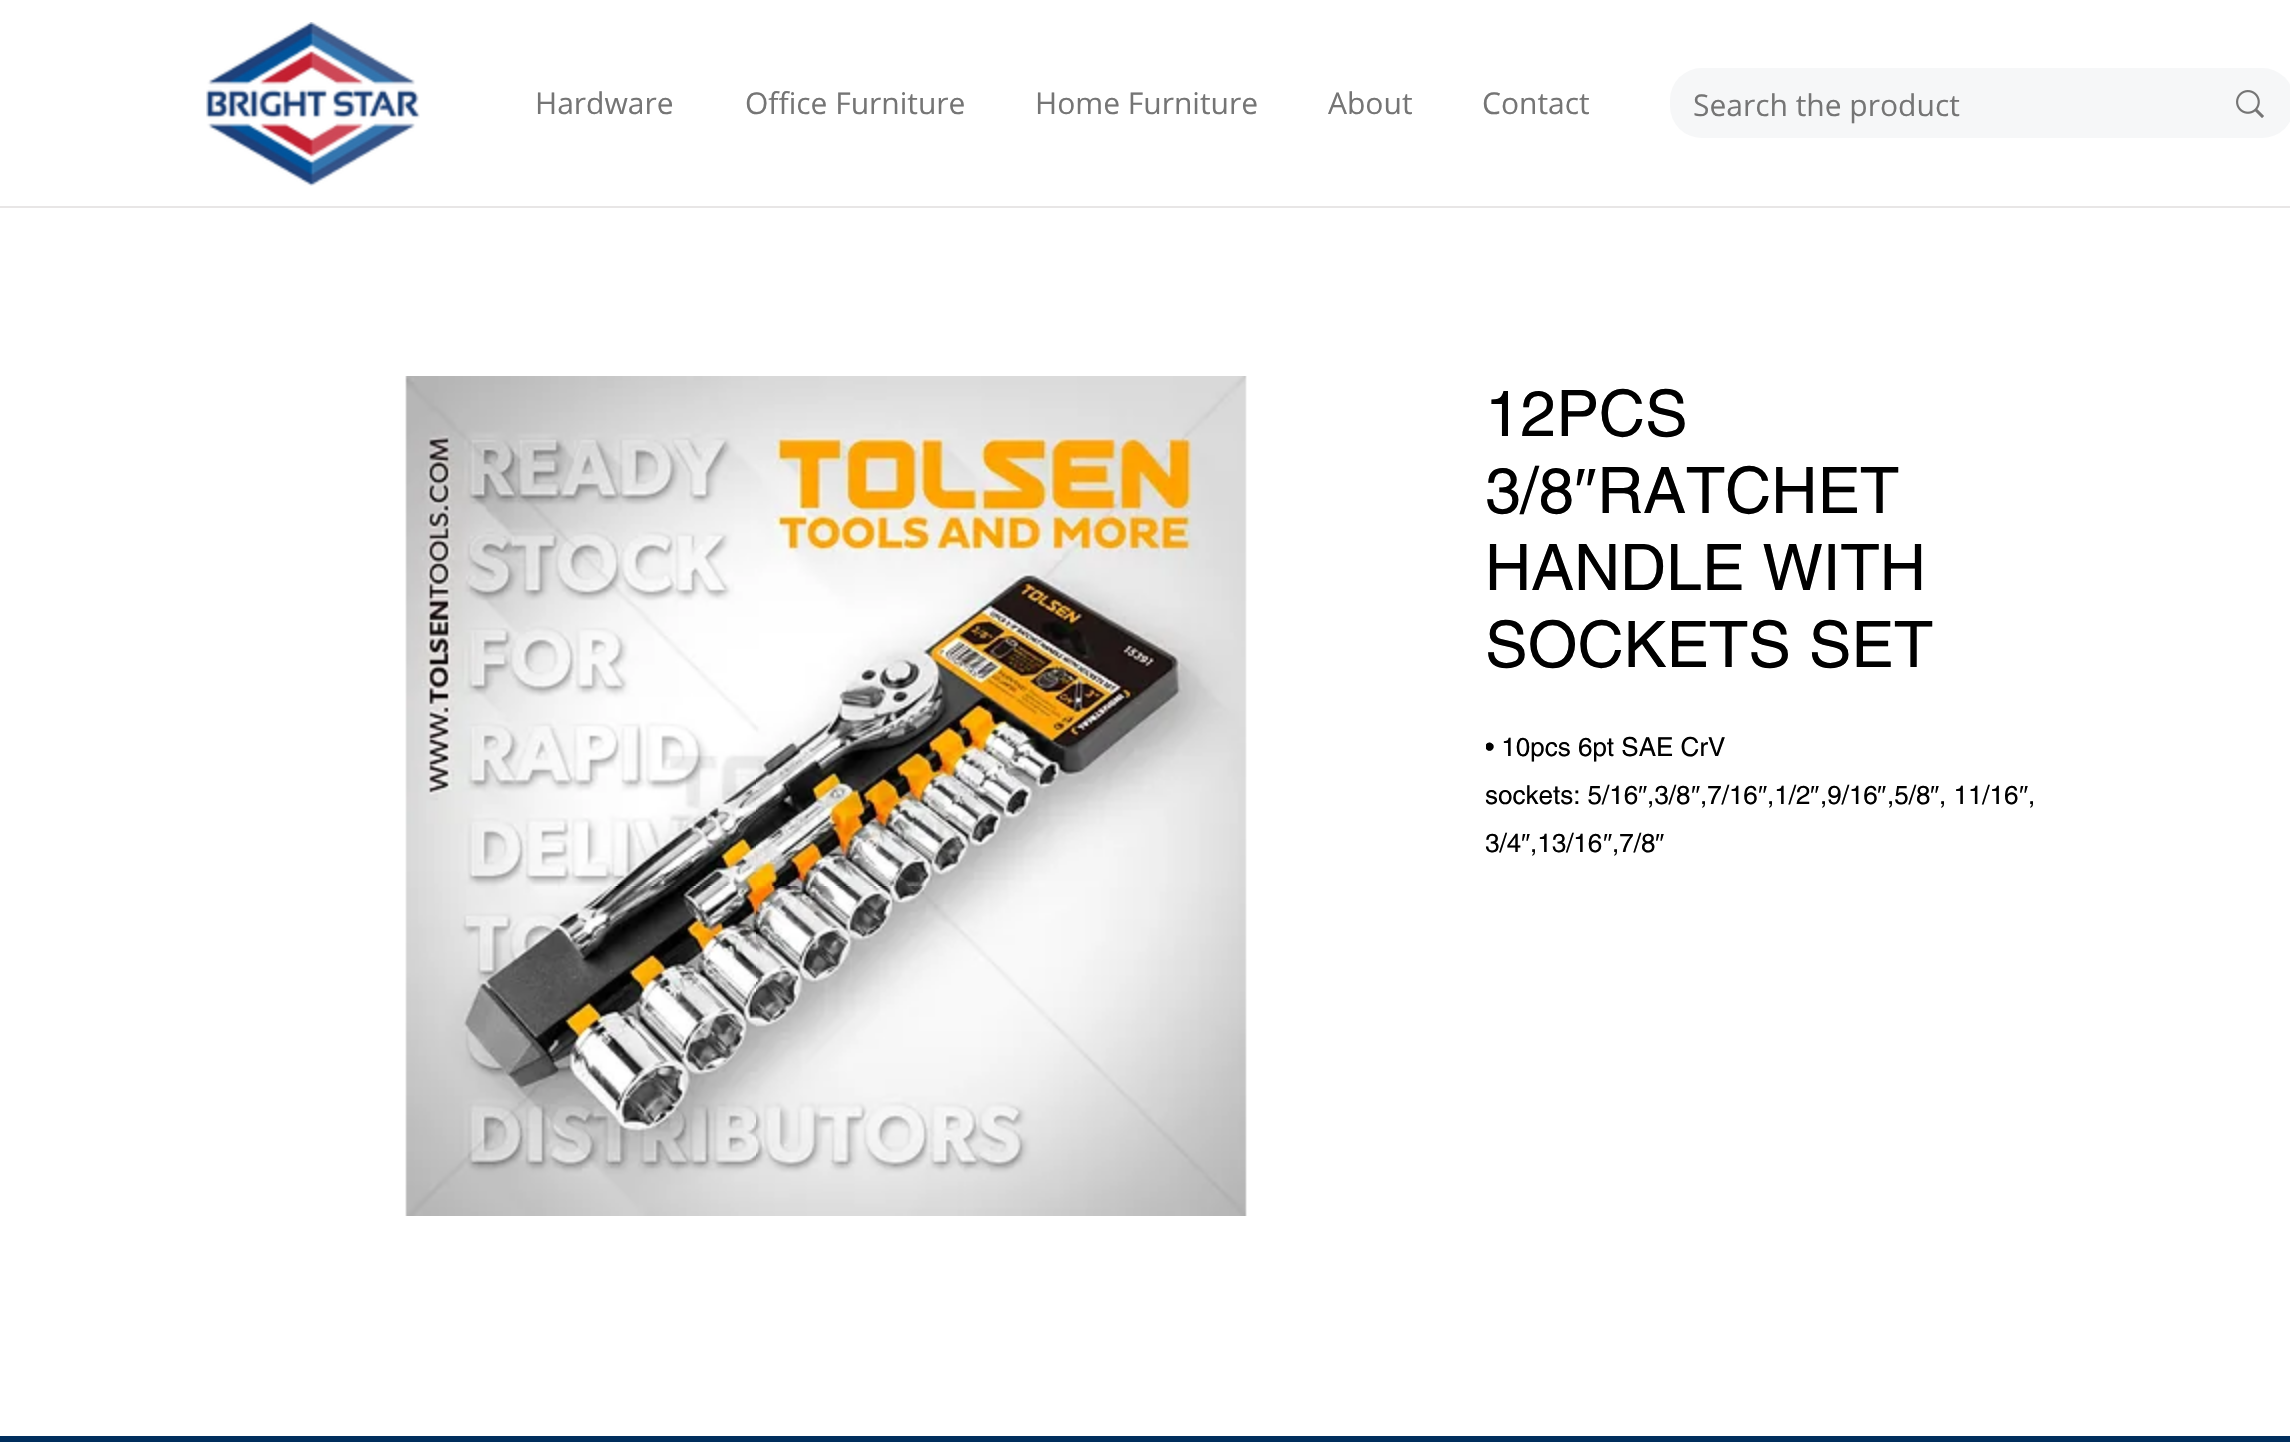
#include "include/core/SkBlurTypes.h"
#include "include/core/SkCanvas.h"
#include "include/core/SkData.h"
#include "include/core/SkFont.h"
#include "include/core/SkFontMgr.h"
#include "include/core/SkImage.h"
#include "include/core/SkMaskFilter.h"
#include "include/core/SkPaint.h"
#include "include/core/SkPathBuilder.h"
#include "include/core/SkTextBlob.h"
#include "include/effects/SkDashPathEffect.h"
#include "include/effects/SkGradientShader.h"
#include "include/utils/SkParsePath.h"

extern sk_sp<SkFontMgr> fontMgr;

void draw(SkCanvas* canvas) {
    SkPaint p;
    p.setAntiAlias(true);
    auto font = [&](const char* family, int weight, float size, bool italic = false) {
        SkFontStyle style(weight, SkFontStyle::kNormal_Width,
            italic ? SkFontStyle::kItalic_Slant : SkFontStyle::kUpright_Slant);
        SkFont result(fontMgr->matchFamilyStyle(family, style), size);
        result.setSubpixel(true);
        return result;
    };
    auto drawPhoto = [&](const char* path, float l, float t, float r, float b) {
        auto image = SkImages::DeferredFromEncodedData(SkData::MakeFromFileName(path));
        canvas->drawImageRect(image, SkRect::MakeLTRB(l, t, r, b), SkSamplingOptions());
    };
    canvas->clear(0xFFFFFFFF);
    drawPhoto("media/1.png", 206, 22, 420, 186);
    auto font1 = font("Open Sans", 400, 30);
    p.setColor(0xFF757575);
    {
        const struct { const char* s; float x, y; } items[] = {
            {"Hardware", 535, 114},
            {"Office Furniture", 745, 114},
            {"Home Furniture", 1035, 114},
            {"About", 1328, 114},
            {"Contact", 1482, 114},
        };
        for (auto [s, x, y] : items) {
            canvas->drawString(s, x, y, font1, p);
        }
    }
    p.setColor(0xFFF6F7F8);
    canvas->drawRoundRect(SkRect::MakeLTRB(1670, 68, 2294, 138), 32, 32, p);
    p.setColor(0xFF757575);
    canvas->drawString("Search the product", 1693, 116, font1, p);
    drawPhoto("media/2.png", 2236, 90, 2264, 118);
    p.setColor(0xFFE8E6E6);
    canvas->drawRect(SkRect::MakeLTRB(0, 206, 2290, 208), p);
    drawPhoto("media/3.png", 405, 376, 1247, 1216);
    auto font2 = font("helvetica", 400, 64);
    p.setColor(0xFF000000);
    canvas->drawString("12PCS", 1485, 436, font2, p);
    canvas->drawString("3/8", 1485, 513, font2, p);
    auto font3 = font("Liberation Sans", 400, 64);
    canvas->drawString("″", 1574, 513, font3, p);
    {
        const struct { const char* s; float x, y; } items[] = {
            {"RATCHET", 1597, 513},
            {"HANDLE WITH", 1485, 590},
            {"SOCKETS SET", 1485, 667},
        };
        for (auto [s, x, y] : items) {
            canvas->drawString(s, x, y, font2, p);
        }
    }
    canvas->save();
    canvas->clipRect(SkRect::MakeLTRB(1486, 724, 2046, 868));
    auto font4 = font("helvetica", 400, 26);
    canvas->drawString("• 10pcs 6pt SAE CrV", 1485, 756, font4, p);
    canvas->restore();
    canvas->drawString("sockets: 5/16", 1485, 804, font4, p);
    auto font5 = font("Liberation Sans", 400, 26);
    canvas->drawString("″", 1638, 804, font5, p);
    canvas->drawString(",3/8", 1647, 804, font4, p);
    canvas->drawString("″", 1691, 804, font5, p);
    canvas->drawString(",7/16", 1700, 804, font4, p);
    canvas->drawString("″", 1758, 804, font5, p);
    canvas->drawString(",1/2", 1767, 804, font4, p);
    canvas->drawString("″", 1810, 804, font5, p);
    canvas->drawString(",9/16", 1820, 804, font4, p);
    canvas->drawString("″", 1877, 804, font5, p);
    canvas->drawString(",5/8", 1887, 804, font4, p);
    canvas->drawString("″", 1930, 804, font5, p);
    canvas->drawString(", 11/16", 1939, 804, font4, p);
    canvas->drawString("″", 2019, 804, font5, p);
    canvas->drawString(",", 2028, 804, font4, p);
    canvas->drawString("3/4", 1485, 852, font4, p);
    canvas->drawString("″", 1521, 852, font5, p);
    canvas->drawString(",13/16", 1530, 852, font4, p);
    canvas->drawString("″", 1603, 852, font5, p);
    canvas->drawString(",7/8", 1612, 852, font4, p);
    canvas->drawString("″", 1655, 852, font5, p);
    p.setColor(0xFF002E5D);
    canvas->drawRect(SkRect::MakeLTRB(0, 1436, 2290, 1442), p);
}
